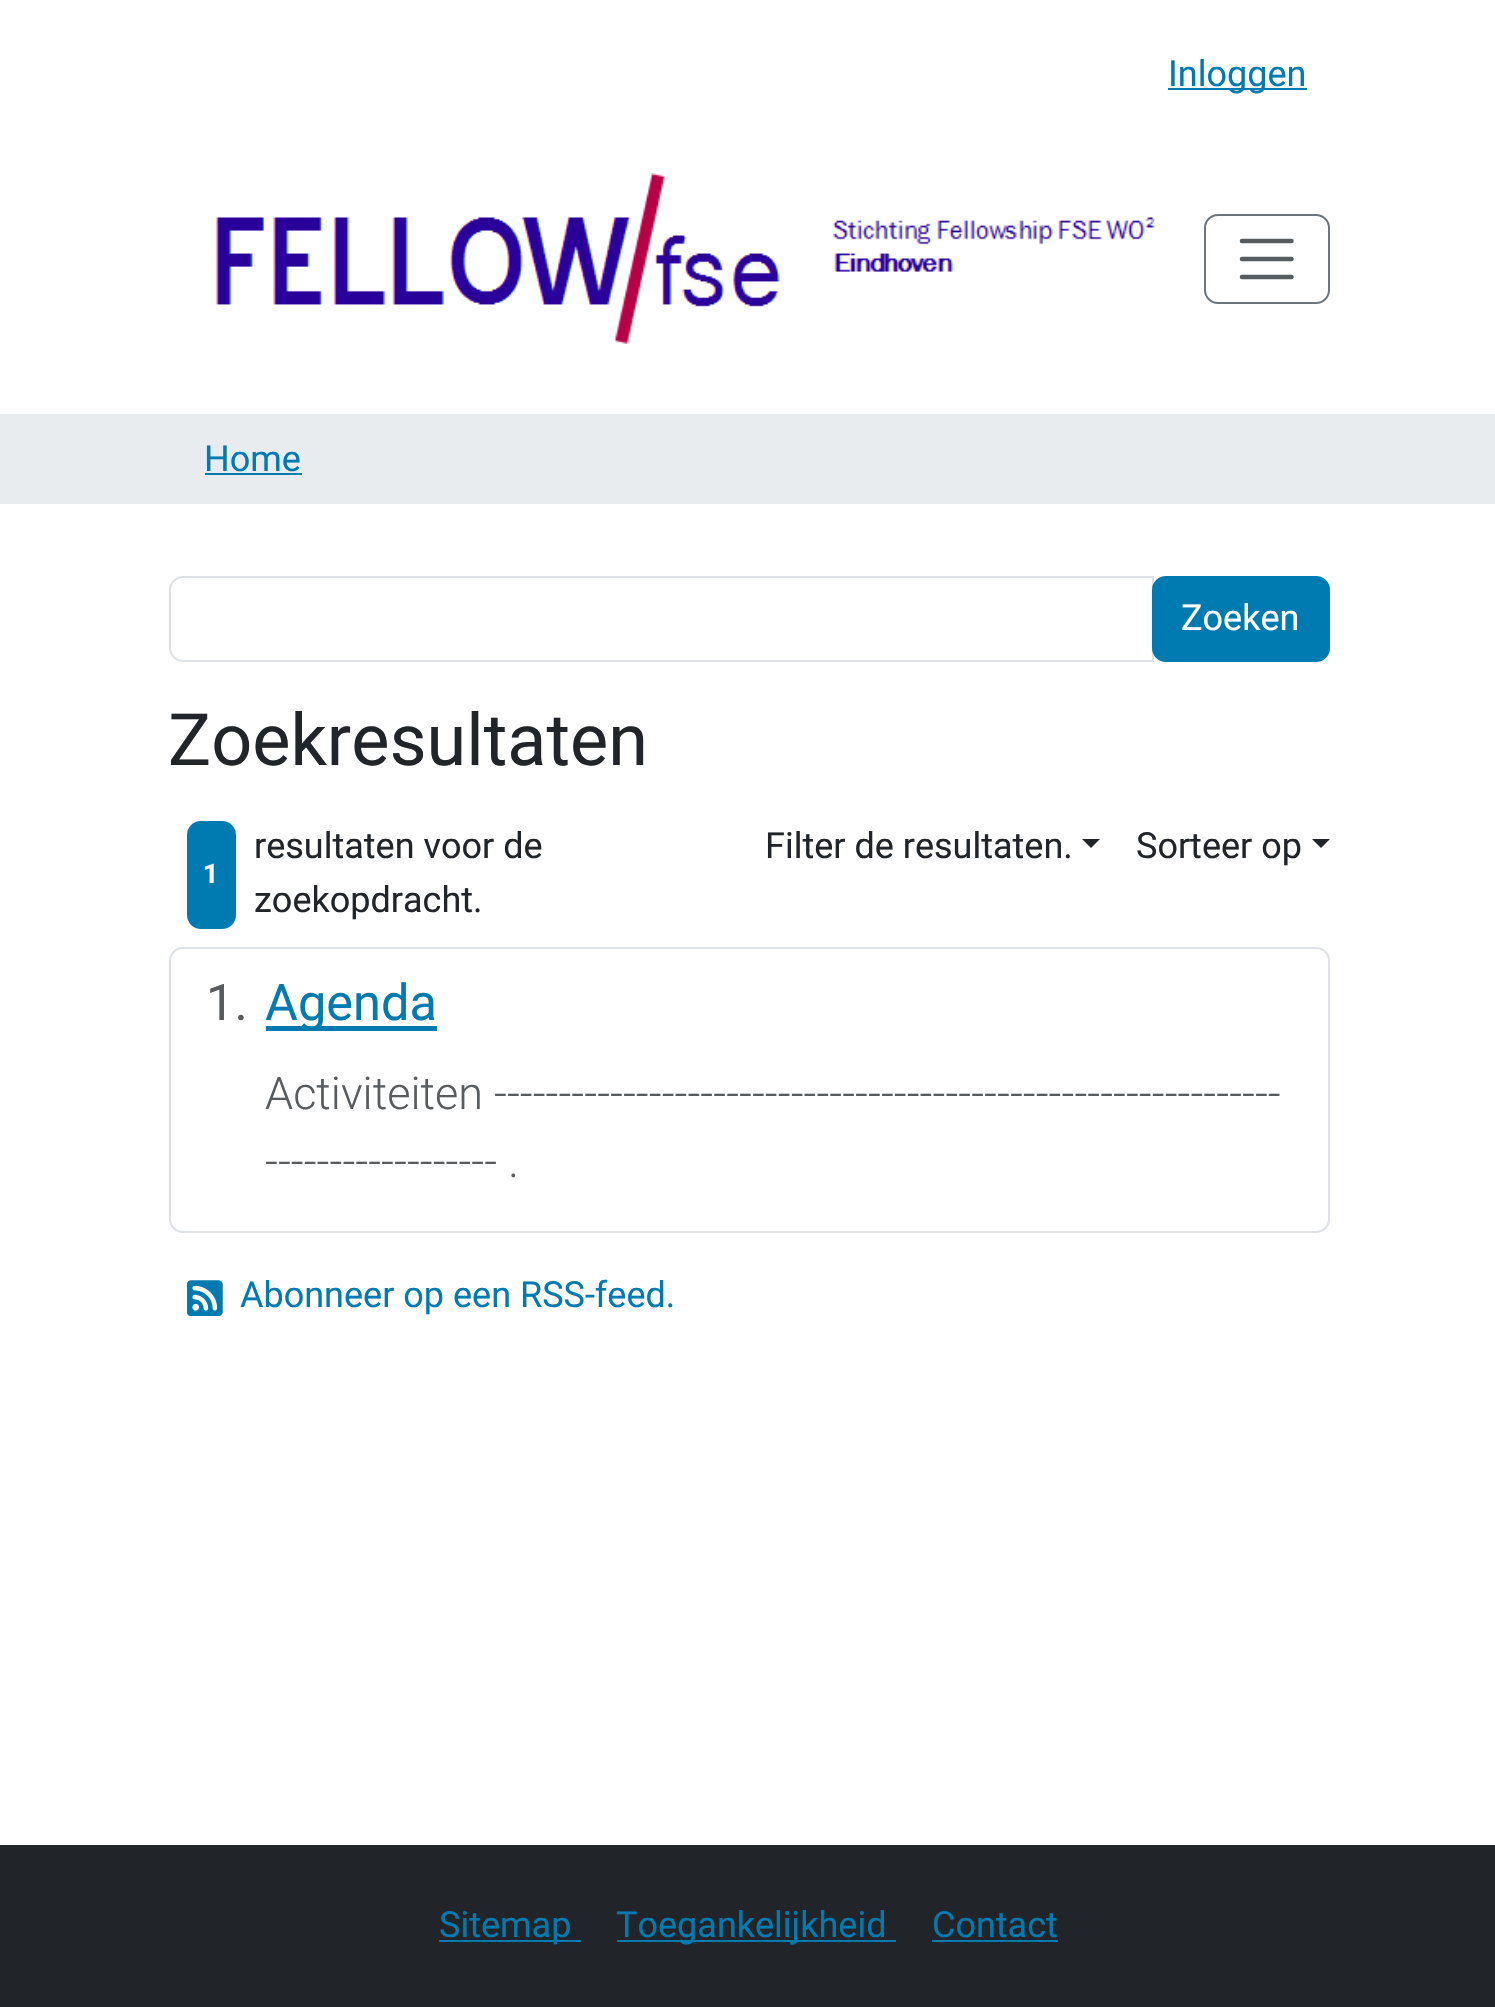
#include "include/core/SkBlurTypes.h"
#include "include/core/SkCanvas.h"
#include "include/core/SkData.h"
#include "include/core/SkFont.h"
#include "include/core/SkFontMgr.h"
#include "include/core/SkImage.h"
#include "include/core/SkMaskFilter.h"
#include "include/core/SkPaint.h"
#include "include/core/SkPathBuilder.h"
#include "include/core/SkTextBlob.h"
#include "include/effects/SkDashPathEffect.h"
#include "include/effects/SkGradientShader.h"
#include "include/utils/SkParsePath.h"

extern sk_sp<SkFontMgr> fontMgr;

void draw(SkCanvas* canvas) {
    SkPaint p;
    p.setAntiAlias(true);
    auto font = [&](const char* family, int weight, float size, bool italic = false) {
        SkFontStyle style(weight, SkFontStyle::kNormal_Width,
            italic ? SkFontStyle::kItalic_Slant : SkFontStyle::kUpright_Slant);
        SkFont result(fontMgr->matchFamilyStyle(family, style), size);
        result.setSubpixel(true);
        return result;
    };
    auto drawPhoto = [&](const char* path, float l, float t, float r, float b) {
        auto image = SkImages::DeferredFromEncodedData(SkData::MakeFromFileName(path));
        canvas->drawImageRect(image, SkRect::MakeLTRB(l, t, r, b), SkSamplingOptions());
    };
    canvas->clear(0xFFFFFFFF);
    p.setColor(0xFF007BB1);
    canvas->drawRect(SkRect::MakeLTRB(1168, 88, 1307, 90), p);
    auto font1 = font("Roboto", 400, 36);
    canvas->drawString("Inloggen", 1168, 86, font1, p);
    drawPhoto("media/1.png", 215, 173, 1155, 344);
    p.setStyle(SkPaint::kStroke_Style);
    p.setStrokeWidth(2);
    p.setColor(0xFF6C757D);
    canvas->drawRoundRect(SkRect::MakeLTRB(1205, 215, 1329, 303), 13, 13, p);
    p.setStrokeWidth(4.5f);
    p.setStrokeCap(SkPaint::kRound_Cap);
    p.setColor(0xFF595C5F);
    canvas->drawPath(SkPathBuilder().moveTo(1242, 241).lineTo(1291.5f, 241).moveTo(1242, 259).lineTo(1291.5f, 259).moveTo(1242, 277).lineTo(1291.5f, 277).detach(), p);
    p.setStyle(SkPaint::kFill_Style);
    p.setColor(0xFFE9ECEF);
    canvas->drawRect(SkRect::MakeLTRB(0, 414, 1495, 504), p);
    p.setColor(0xFF007BB1);
    canvas->drawString("Home", 204, 471, font1, p);
    canvas->drawRect(SkRect::MakeLTRB(205, 473, 302, 475), p);
    p.setStyle(SkPaint::kStroke_Style);
    p.setStrokeWidth(2);
    p.setStrokeCap(SkPaint::kButt_Cap);
    p.setColor(0xFFDEE2E6);
    canvas->drawPath(SkPathBuilder().moveTo(183, 577).lineTo(1153, 577).lineTo(1153, 661).lineTo(183, 661).cubicTo(176, 661, 170, 655, 170, 648).lineTo(170, 590).cubicTo(170, 583, 176, 577, 183, 577).close().detach(), p);
    p.setStyle(SkPaint::kFill_Style);
    p.setColor(0xFF007BB1);
    canvas->drawRoundRect(SkRect::MakeLTRB(1153, 577, 1329, 661), 13, 13, p);
    p.setStyle(SkPaint::kStroke_Style);
    canvas->drawRoundRect(SkRect::MakeLTRB(1153, 577, 1329, 661), 13, 13, p);
    p.setStyle(SkPaint::kFill_Style);
    p.setColor(0xFFFFFFFF);
    canvas->drawString("Zoeken", 1181, 630, font1, p);
    auto font2 = font("Roboto", 400, 72);
    p.setColor(0xFF212529);
    canvas->drawString("Zoekresultaten", 168, 765, font2, p);
    canvas->drawString("resultaten voor de", 254, 858, font1, p);
    p.setColor(0xFF007BB1);
    canvas->drawRoundRect(SkRect::MakeLTRB(187, 821, 236, 929), 14, 14, p);
    auto font3 = font("Roboto", 700, 27);
    p.setColor(0xFFFFFFFF);
    canvas->drawString("1", 203, 883, font3, p);
    p.setColor(0xFF212529);
    canvas->drawString("zoekopdracht.", 254, 912, font1, p);
    canvas->drawString("Filter de resultaten.", 765, 858, font1, p);
    canvas->drawPath(SkPathBuilder().moveTo(1082, 839).lineTo(1100, 839).lineTo(1091, 848).close().detach(), p);
    canvas->drawString("Sorteer op", 1136, 858, font1, p);
    canvas->drawPath(SkPathBuilder().moveTo(1312, 839).lineTo(1330, 839).lineTo(1321, 848).close().detach(), p);
    p.setStyle(SkPaint::kStroke_Style);
    p.setColor(0xFFDEE2E6);
    canvas->drawRoundRect(SkRect::MakeLTRB(170, 948, 1329, 1232), 13, 13, p);
    auto font4 = font("Roboto", 400, 50.5f);
    p.setStyle(SkPaint::kFill_Style);
    p.setColor(0xFF595C5F);
    canvas->drawString("1.", 206, 1020, font4, p);
    p.setColor(0xFF007BB1);
    canvas->drawRect(SkRect::MakeLTRB(266, 1026, 437, 1031), p);
    canvas->drawString("Agenda", 265, 1020, font4, p);
    auto font5 = font("Roboto", 300, 45);
    p.setColor(0xFF595C5F);
    canvas->drawString("Activiteiten -------------------------------------------------------------", 265, 1109, font5, p);
    canvas->drawString("------------------ .", 265, 1177, font5, p);
    drawPhoto("media/2.png", 187, 1280, 223, 1316);
    p.setColor(0xFF007BB1);
    canvas->drawString("Abonneer op een RSS-feed.", 240, 1307, font1, p);
    p.setColor(0xFF212529);
    canvas->drawRect(SkRect::MakeLTRB(0, 1845, 1495, 2007), p);
    p.setColor(0xFF007BB1);
    canvas->drawRect(SkRect::MakeLTRB(439, 1940, 581, 1942), p);
    canvas->drawString("Sitemap", 439, 1937, font1, p);
    canvas->drawRect(SkRect::MakeLTRB(617, 1940, 896, 1942), p);
    canvas->drawString("Toegankelijkheid", 616, 1937, font1, p);
    canvas->drawString("Contact", 932, 1937, font1, p);
    canvas->drawRect(SkRect::MakeLTRB(932, 1940, 1058, 1942), p);
}
